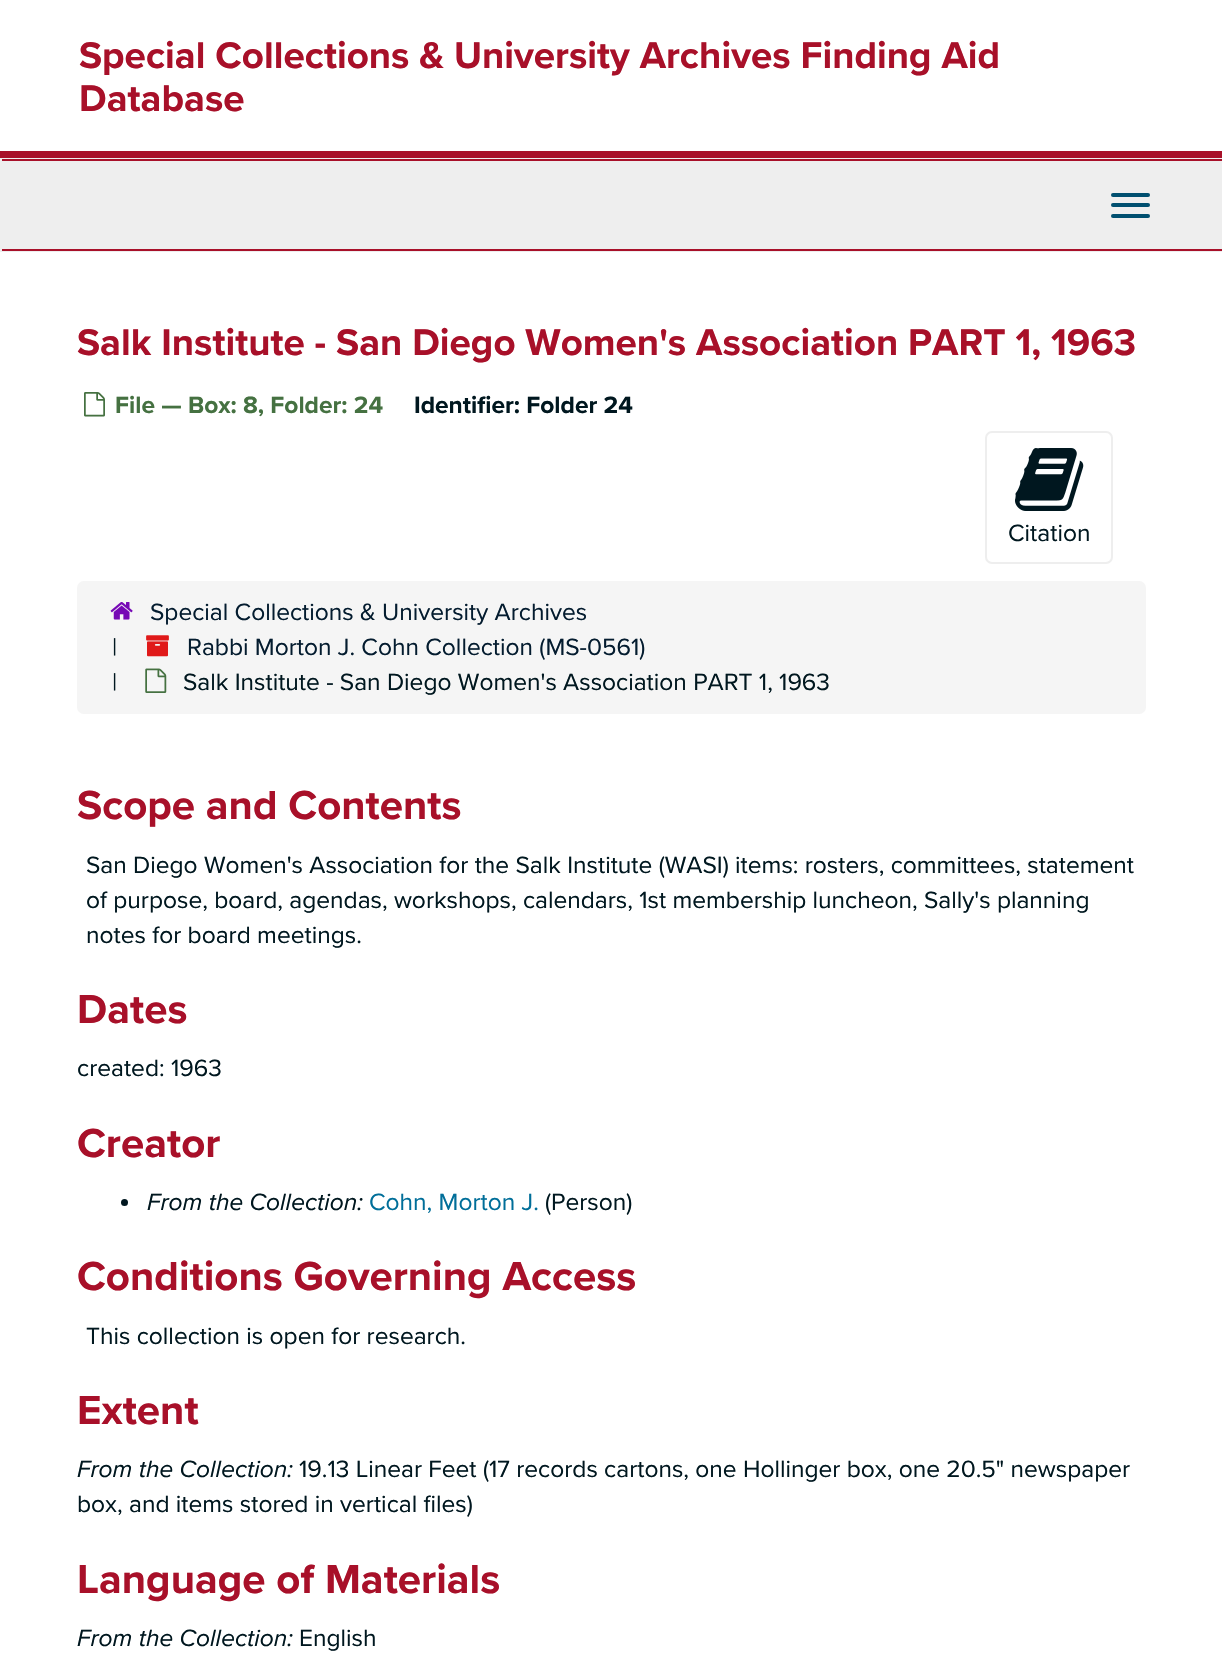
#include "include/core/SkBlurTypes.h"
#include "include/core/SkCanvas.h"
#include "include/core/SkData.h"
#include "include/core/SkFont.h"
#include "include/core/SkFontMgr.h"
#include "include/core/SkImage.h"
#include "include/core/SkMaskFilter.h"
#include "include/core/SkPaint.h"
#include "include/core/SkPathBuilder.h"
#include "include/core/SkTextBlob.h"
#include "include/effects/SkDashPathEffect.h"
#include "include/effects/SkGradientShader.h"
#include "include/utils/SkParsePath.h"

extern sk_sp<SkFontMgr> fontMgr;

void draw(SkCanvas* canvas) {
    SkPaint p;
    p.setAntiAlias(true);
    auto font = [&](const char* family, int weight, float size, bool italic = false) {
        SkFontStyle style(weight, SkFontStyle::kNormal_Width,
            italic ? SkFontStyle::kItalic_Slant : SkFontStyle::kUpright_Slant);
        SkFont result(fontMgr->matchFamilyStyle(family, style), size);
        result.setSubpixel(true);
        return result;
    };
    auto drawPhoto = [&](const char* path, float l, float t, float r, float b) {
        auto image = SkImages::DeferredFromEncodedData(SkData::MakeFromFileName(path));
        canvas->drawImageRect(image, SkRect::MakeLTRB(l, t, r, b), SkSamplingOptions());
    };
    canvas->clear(0xFFFFFFFF);
    p.setColor(0xFFA81029);
    canvas->drawRect(SkRect::MakeLTRB(0, 151, 1222, 158), p);
    auto font1 = font("Proxima Nova", 700, 38.5f);
    canvas->drawString("Special Collections & University Archives Finding Aid", 79, 68, font1, p);
    canvas->drawString("Database", 79, 111, font1, p);
    {
        const struct { float l, t, r, b; SkColor color; } items[] = {
            {0, 158, 1222, 252, 0xFFEEEEEE},
            {2, 159, 1222, 161, 0xFFA81029},
            {2, 249, 1222, 251, 0xFFA81029},
        };
        for (auto [l, t, r, b, color] : items) {
            p.setColor(color);
            canvas->drawRect(SkRect::MakeLTRB(l, t, r, b), p);
        }
    }
    p.setColor(0xFF004F6F);
    canvas->drawRoundRect(SkRect::MakeLTRB(1111, 193, 1150, 197), 2, 2, p);
    canvas->drawRoundRect(SkRect::MakeLTRB(1111, 203, 1150, 207), 2, 2, p);
    canvas->drawRoundRect(SkRect::MakeLTRB(1111, 214, 1150, 218), 2, 2, p);
    p.setColor(0xFFA81029);
    canvas->drawString("Salk Institute - San Diego Women's Association PART 1, 1963", 77, 355, font1, p);
    drawPhoto("media/1.png", 84, 392, 105, 417);
    auto font2 = font("Proxima Nova", 700, 24.5f);
    p.setColor(0xFF457141);
    canvas->drawString("File — Box: 8, Folder: 24", 115, 413, font2, p);
    p.setColor(0xFF00171F);
    canvas->drawString("Identifier: Folder 24", 414, 413, font2, p);
    p.setStyle(SkPaint::kStroke_Style);
    p.setStrokeWidth(2);
    p.setColor(0xFFEEEEEE);
    canvas->drawRoundRect(SkRect::MakeLTRB(986, 432, 1112, 563), 6, 6, p);
    drawPhoto("media/2.png", 1015, 448, 1084, 511);
    auto font3 = font("Proxima Nova", 400, 24.5f);
    p.setStyle(SkPaint::kFill_Style);
    p.setColor(0xFF00171F);
    canvas->drawString("Citation", 1008, 541, font3, p);
    p.setColor(0xFFF5F5F5);
    canvas->drawRoundRect(SkRect::MakeLTRB(77, 581, 1146, 714), 7, 7, p);
    drawPhoto("media/3.png", 110, 602, 133, 620);
    p.setColor(0xFF041C2F);
    canvas->drawString("Special Collections & University Archives", 150, 620, font3, p);
    p.setColor(0xFF00171F);
    canvas->drawString("|", 112, 655, font3, p);
    drawPhoto("media/4.png", 146, 635, 169, 657);
    p.setColor(0xFF041C2F);
    canvas->drawString("Rabbi Morton J. Cohn Collection (MS-0561)", 187, 655, font3, p);
    p.setColor(0xFF00171F);
    canvas->drawString("|", 112, 690, font3, p);
    drawPhoto("media/5.png", 145, 668, 167, 693);
    canvas->drawString("Salk Institute - San Diego Women's Association PART 1, 1963", 183, 690, font3, p);
    auto font4 = font("Proxima Nova", 700, 42);
    p.setColor(0xFFA81029);
    canvas->drawString("Scope and Contents", 77, 819, font4, p);
    p.setColor(0xFF00171F);
    {
        const struct { const char* s; float x, y; } items[] = {
            {"San Diego Women's Association for the Salk Institute (WASI) items: rosters, committees, statement", 86, 873},
            {"of purpose, board, agendas, workshops, calendars, 1st membership luncheon, Sally's planning", 86, 908},
            {"notes for board meetings.", 86, 943},
        };
        for (auto [s, x, y] : items) {
            canvas->drawString(s, x, y, font3, p);
        }
    }
    p.setColor(0xFFA81029);
    canvas->drawString("Dates", 77, 1023, font4, p);
    p.setColor(0xFF00171F);
    canvas->drawString("created: 1963", 77, 1076, font3, p);
    p.setColor(0xFFA81029);
    canvas->drawString("Creator", 77, 1157, font4, p);
    p.setColor(0xFF00171F);
    canvas->drawCircle(124.5f, 1202.5f, 3.5f, p);
    auto font5 = font("Proxima Nova", 400, 24.5f, true);
    canvas->drawString("From the Collection:", 147, 1210, font5, p);
    p.setColor(0xFF006E99);
    canvas->drawString("Cohn, Morton J.", 369, 1210, font3, p);
    p.setColor(0xFF00171F);
    canvas->drawString("(Person)", 545, 1210, font3, p);
    p.setColor(0xFFA81029);
    canvas->drawString("Conditions Governing Access", 77, 1290, font4, p);
    p.setColor(0xFF00171F);
    canvas->drawString("This collection is open for research.", 86, 1344, font3, p);
    p.setColor(0xFFA81029);
    canvas->drawString("Extent", 77, 1424, font4, p);
    p.setColor(0xFF00171F);
    canvas->drawString("From the Collection:", 77, 1477, font5, p);
    canvas->drawString("19.13 Linear Feet (17 records cartons, one Hollinger box, one 20.5\" newspaper", 299, 1477, font3, p);
    canvas->drawString("box, and items stored in vertical files)", 77, 1512, font3, p);
    p.setColor(0xFFA81029);
    canvas->drawString("Language of Materials", 77, 1593, font4, p);
    p.setColor(0xFF00171F);
    canvas->drawString("From the Collection:", 77, 1646, font5, p);
    canvas->drawString("English", 299, 1646, font3, p);
}
